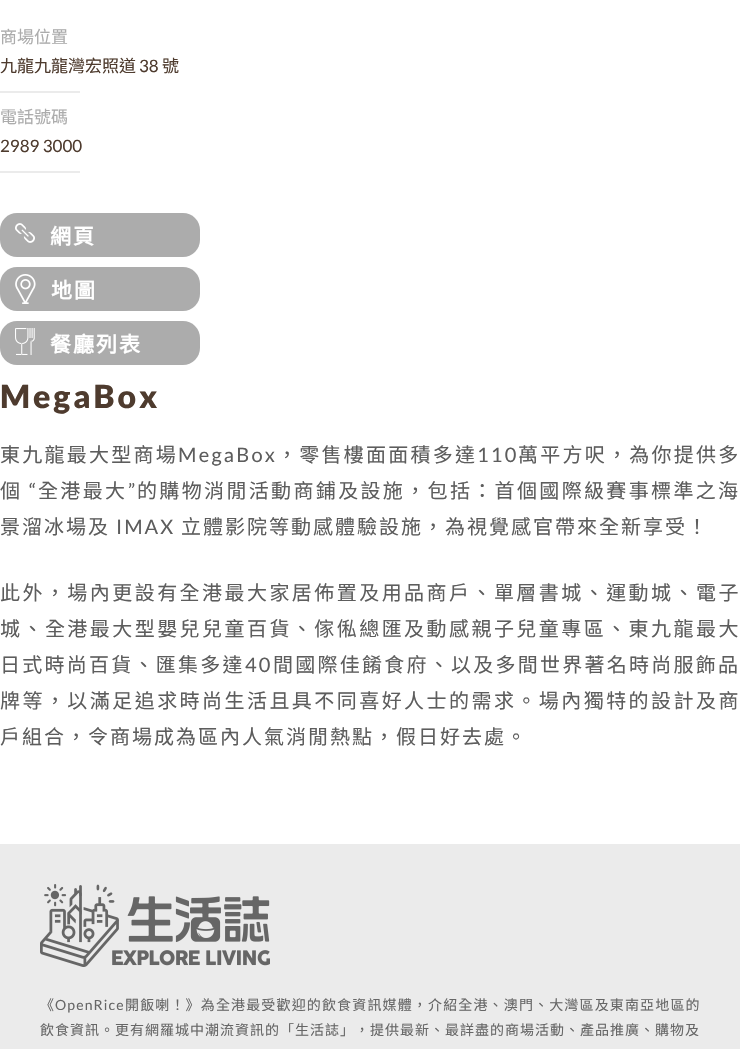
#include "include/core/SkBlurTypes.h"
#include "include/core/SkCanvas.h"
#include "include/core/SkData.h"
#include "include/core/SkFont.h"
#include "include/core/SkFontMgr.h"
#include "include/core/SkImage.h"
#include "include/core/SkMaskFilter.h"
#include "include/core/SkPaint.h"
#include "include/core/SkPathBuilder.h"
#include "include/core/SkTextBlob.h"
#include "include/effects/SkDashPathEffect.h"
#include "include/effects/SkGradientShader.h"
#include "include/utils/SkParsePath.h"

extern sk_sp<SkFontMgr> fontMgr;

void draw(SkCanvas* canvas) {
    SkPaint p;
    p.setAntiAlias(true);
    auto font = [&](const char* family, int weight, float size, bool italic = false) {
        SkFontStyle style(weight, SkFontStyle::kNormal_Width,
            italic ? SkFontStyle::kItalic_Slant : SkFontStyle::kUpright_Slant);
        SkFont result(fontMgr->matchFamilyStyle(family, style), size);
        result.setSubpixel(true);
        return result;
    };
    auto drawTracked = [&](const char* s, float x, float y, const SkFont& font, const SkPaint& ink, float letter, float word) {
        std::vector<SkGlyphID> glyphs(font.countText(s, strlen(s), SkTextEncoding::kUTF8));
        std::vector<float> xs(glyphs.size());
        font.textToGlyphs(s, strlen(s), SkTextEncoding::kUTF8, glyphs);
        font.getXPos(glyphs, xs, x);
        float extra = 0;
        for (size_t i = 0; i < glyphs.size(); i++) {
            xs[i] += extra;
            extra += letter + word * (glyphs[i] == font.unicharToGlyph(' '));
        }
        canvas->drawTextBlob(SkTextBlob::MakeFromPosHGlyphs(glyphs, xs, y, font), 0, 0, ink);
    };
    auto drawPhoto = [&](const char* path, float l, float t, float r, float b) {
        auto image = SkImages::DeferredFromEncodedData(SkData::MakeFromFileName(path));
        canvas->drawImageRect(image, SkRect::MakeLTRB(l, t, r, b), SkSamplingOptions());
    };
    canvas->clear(0xFFEBEBEB);
    p.setColor(0xFFFFFFFF);
    canvas->drawRect(SkRect::MakeLTRB(0, 0, 740, 844), p);
    auto font1 = font("Noto Sans CJK TC", 400, 17);
    p.setColor(0xFFACACAC);
    canvas->drawString("商場位置", 0, 43, font1, p);
    p.setColor(0xFF4E3B2E);
    canvas->drawString("九龍九龍灣宏照道", 0, 72, font1, p);
    auto font2 = font("Lato", 400, 17);
    canvas->drawString("38", 139, 72, font2, p);
    canvas->drawString("號", 162, 72, font1, p);
    p.setColor(0xFFEBEBEB);
    canvas->drawRect(SkRect::MakeLTRB(0, 91, 80, 93), p);
    p.setColor(0xFFACACAC);
    canvas->drawString("電話號碼", 0, 123, font1, p);
    p.setColor(0xFF4E3B2E);
    canvas->drawString("2989 3000", 0, 152, font2, p);
    p.setColor(0xFFEBEBEB);
    canvas->drawRect(SkRect::MakeLTRB(0, 171, 80, 173), p);
    p.setColor(0xFFACACAC);
    canvas->drawRoundRect(SkRect::MakeLTRB(0, 213, 200, 257), 17, 17, p);
    drawPhoto("media/1.png", 15, 223, 35, 243);
    auto font3 = font("Noto Sans CJK TC", 700, 21);
    p.setColor(0xFFFFFFFF);
    drawTracked("網頁", 50, 244, font3, p, 2, 0);
    p.setColor(0xFFACACAC);
    canvas->drawRoundRect(SkRect::MakeLTRB(0, 267, 200, 311), 17, 17, p);
    drawPhoto("media/2.png", 15, 274, 36, 304);
    p.setColor(0xFFFFFFFF);
    drawTracked("地圖", 51, 298, font3, p, 2, 0);
    p.setColor(0xFFACACAC);
    canvas->drawRoundRect(SkRect::MakeLTRB(0, 321, 200, 365), 17, 17, p);
    drawPhoto("media/3.png", 15, 328, 35, 355);
    p.setColor(0xFFFFFFFF);
    drawTracked("餐廳列表", 50, 352, font3, p, 2, 0);
    auto font4 = font("Lato", 900, 32);
    p.setColor(0xFF4E3B2E);
    drawTracked("MegaBox", 0, 408, font4, p, 3, 0);
    auto font5 = font("Noto Sans CJK TC", 400, 20);
    p.setColor(0xFF5D5D5D);
    drawTracked("東九龍最大型商場", 0, 462, font5, p, 2.25f, 0);
    auto font6 = font("Lato", 400, 20);
    drawTracked("MegaBox", 178, 462, font6, p, 2.25f, 0);
    drawTracked("，零售樓面面積多達", 277, 462, font5, p, 2.25f, 0);
    drawTracked("110", 477, 462, font6, p, 2.25f, 0);
    drawTracked("萬平方呎，為你提供多", 518, 462, font5, p, 2.25f, 0);
    drawTracked("個", 0, 498, font5, p, 2.35f, 0);
    drawTracked("“", 29, 498, font6, p, 2.35f, 0);
    drawTracked("全港最大", 38, 498, font5, p, 2.35f, 0);
    drawTracked("”", 128, 498, font6, p, 2.35f, 0);
    drawTracked("的購物消閒活動商鋪及設施，包括：首個國際級賽事標準之海", 137, 498, font5, p, 2.35f, 0);
    drawTracked("景溜冰場及", 0, 534, font5, p, 2, 0);
    drawTracked("IMAX", 116, 534, font6, p, 2, 0);
    drawTracked("立體影院等動感體驗設施，為視覺感官帶來全新享受！", 181, 534, font5, p, 2, 0);
    drawTracked("此外，場內更設有全港最大家居佈置及用品商戶、單層書城、運動城、電子", 0, 600, font5, p, 2.45f, 0);
    drawTracked("城、全港最大型嬰兒兒童百貨、傢俬總匯及動感親子兒童專區、東九龍最大", 0, 636, font5, p, 2.45f, 0);
    drawTracked("日式時尚百貨、匯集多達", 0, 672, font5, p, 2.25f, 0);
    drawTracked("40", 245, 672, font6, p, 2.25f, 0);
    drawTracked("間國際佳餚食府、以及多間世界著名時尚服飾品", 273, 672, font5, p, 2.25f, 0);
    drawTracked("牌等，以滿足追求時尚生活且具不同喜好人士的需求。場內獨特的設計及商", 0, 708, font5, p, 2.45f, 0);
    drawTracked("戶組合，令商場成為區內人氣消閒熱點，假日好去處。", 0, 744, font5, p, 2, 0);
    drawPhoto("media/4.png", 40, 884, 270, 967);
    auto font7 = font("Noto Sans CJK TC", 400, 14);
    p.setColor(0xFF666666);
    drawTracked("《", 40, 1010, font7, p, 1.15f, 0);
    auto font8 = font("Lato", 400, 14);
    drawTracked("OpenRice", 55, 1010, font8, p, 1.15f, 0);
    drawTracked("開飯喇！》為全港最受歡迎的飲食資訊媒體，介紹全港、澳門、大灣區及東南亞地區的", 125, 1010, font7, p, 1.15f, 0);
    drawTracked("飲食資訊。更有網羅城中潮流資訊的「生活誌」，提供最新、最詳盡的商場活動、產品推廣、購物及", 40, 1035, font7, p, 1, 0);
}
